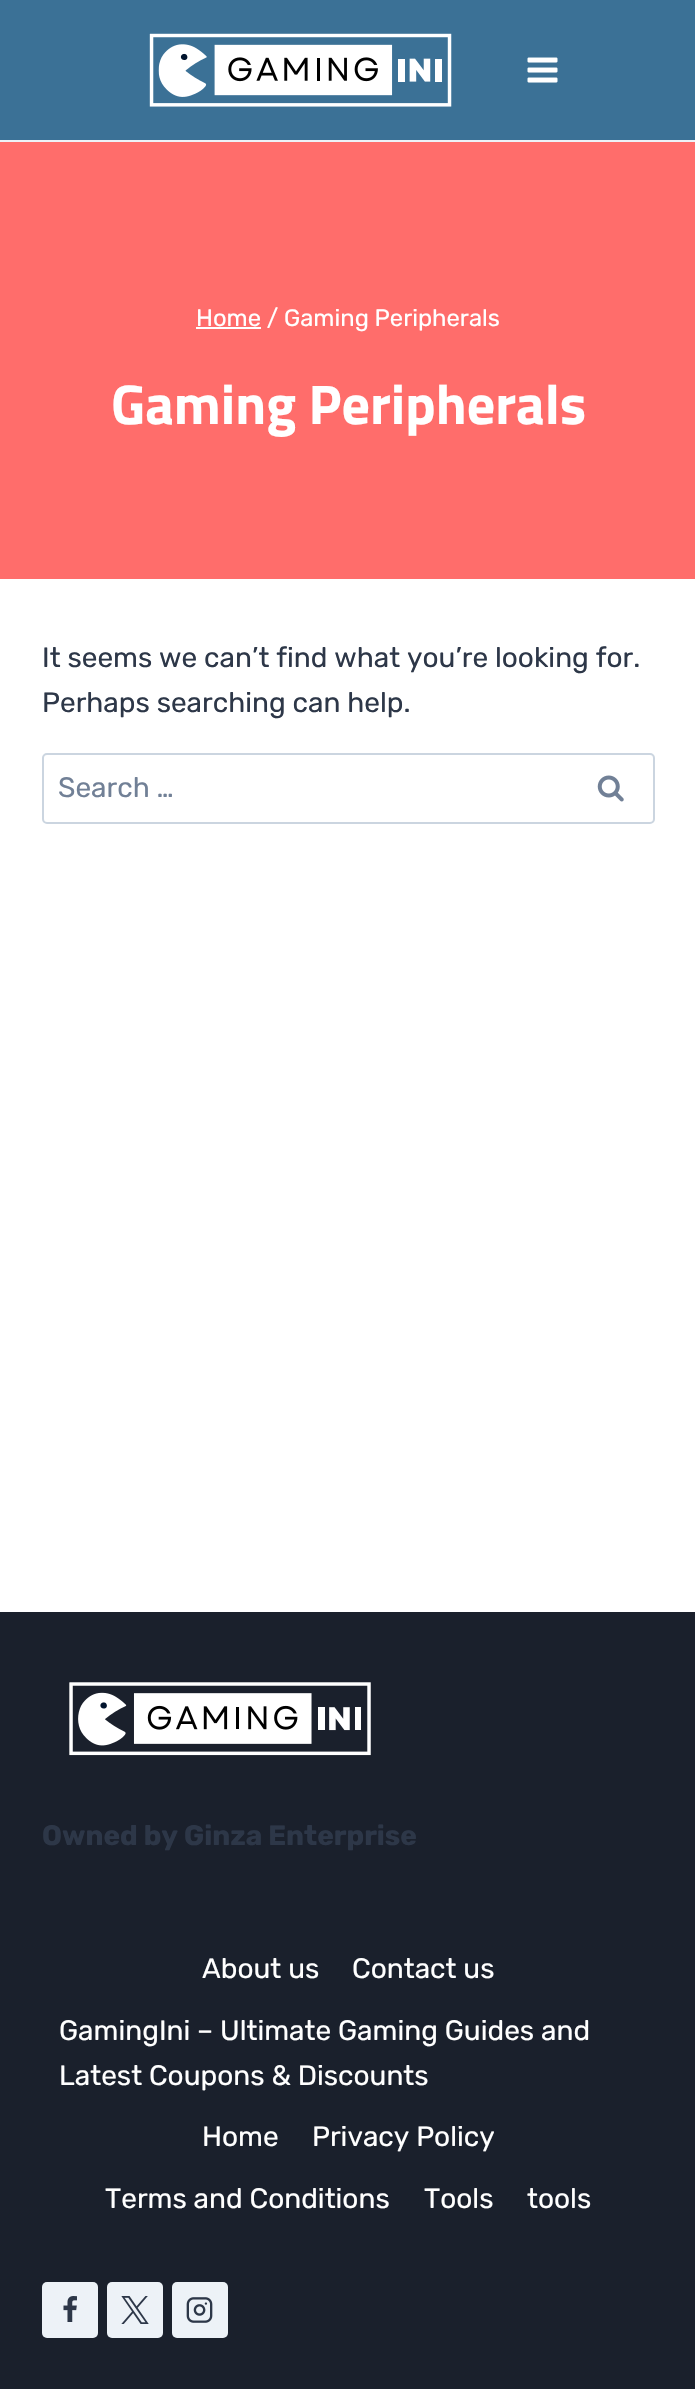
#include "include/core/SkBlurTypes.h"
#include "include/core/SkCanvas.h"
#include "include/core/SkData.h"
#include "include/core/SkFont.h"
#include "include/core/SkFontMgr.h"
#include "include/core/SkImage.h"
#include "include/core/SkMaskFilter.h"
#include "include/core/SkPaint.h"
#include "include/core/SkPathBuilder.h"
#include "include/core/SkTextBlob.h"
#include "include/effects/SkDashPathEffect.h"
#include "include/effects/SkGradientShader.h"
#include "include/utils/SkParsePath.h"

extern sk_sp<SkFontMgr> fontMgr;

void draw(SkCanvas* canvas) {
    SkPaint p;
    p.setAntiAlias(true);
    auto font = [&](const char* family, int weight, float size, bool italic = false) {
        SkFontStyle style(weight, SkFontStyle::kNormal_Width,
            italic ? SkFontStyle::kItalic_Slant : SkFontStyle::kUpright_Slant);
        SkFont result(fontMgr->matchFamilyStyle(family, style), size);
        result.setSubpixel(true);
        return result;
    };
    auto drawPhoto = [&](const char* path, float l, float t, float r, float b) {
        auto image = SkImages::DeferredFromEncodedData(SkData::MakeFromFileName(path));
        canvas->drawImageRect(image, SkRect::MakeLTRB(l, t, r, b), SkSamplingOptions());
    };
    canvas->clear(0xFFFFFFFF);
    p.setColor(0xFF3B7196);
    canvas->drawRect(SkRect::MakeLTRB(0, 0, 695, 140), p);
    p.setColor(0xFFEDF2F7);
    canvas->drawRect(SkRect::MakeLTRB(0, 140, 695, 142), p);
    drawPhoto("media/1.png", 149, 33, 452, 107);
    drawPhoto("media/2.png", 527, 57, 558, 83);
    p.setColor(0xFFFF6D6B);
    canvas->drawRect(SkRect::MakeLTRB(0, 142, 695, 579), p);
    p.setColor(0xFFFFFFFF);
    canvas->drawRect(SkRect::MakeLTRB(196, 327, 261, 329), p);
    auto font1 = font("Rubik", 400, 23.75f);
    canvas->drawString("Home / Gaming Peripherals", 196, 326, font1, p);
    auto font2 = font("Titillium Web", 700, 56);
    canvas->drawString("Gaming Peripherals", 111, 424, font2, p);
    auto font3 = font("Rubik", 400, 28);
    p.setColor(0xFF2D3748);
    canvas->drawString("It seems we can’t find what you’re looking for.", 42, 667, font3, p);
    canvas->drawString("Perhaps searching can help.", 42, 712, font3, p);
    p.setStyle(SkPaint::kStroke_Style);
    p.setStrokeWidth(2);
    p.setColor(0xFFCBD5E0);
    canvas->drawRoundRect(SkRect::MakeLTRB(43, 754, 654, 823), 4, 4, p);
    p.setStyle(SkPaint::kFill_Style);
    p.setColor(0xFF718096);
    canvas->drawString("Search …", 58, 797, font3, p);
    drawPhoto("media/3.png", 597, 775, 624, 802);
    p.setColor(0xFF1A202C);
    canvas->drawRect(SkRect::MakeLTRB(0, 1612, 695, 2389), p);
    drawPhoto("media/4.png", 69, 1682, 371, 1756);
    auto font4 = font("Rubik", 700, 28);
    p.setColor(0xFF2D3748);
    canvas->drawString("Owned by Ginza Enterprise", 42, 1845, font4, p);
    p.setColor(0xFFFFFFFF);
    {
        const struct { const char* s; float x, y; } items[] = {
            {"About us", 202, 1978},
            {"Contact us", 352, 1978},
            {"GamingIni – Ultimate Gaming Guides and", 59, 2040},
            {"Latest Coupons & Discounts", 59, 2085},
            {"Home", 202, 2146},
            {"Privacy Policy", 312, 2146},
            {"Terms and Conditions", 105, 2208},
            {"Tools", 424, 2208},
            {"tools", 527, 2208},
        };
        for (auto [s, x, y] : items) {
            canvas->drawString(s, x, y, font3, p);
        }
    }
    p.setColor(0xFFEDF2F7);
    canvas->drawRoundRect(SkRect::MakeLTRB(42, 2282, 98, 2338), 5, 5, p);
    drawPhoto("media/5.png", 63, 2296, 77, 2322);
    canvas->drawRoundRect(SkRect::MakeLTRB(107, 2282, 163, 2338), 5, 5, p);
    drawPhoto("media/6.png", 121, 2296, 149, 2324);
    canvas->drawRoundRect(SkRect::MakeLTRB(172, 2282, 228, 2338), 5, 5, p);
    drawPhoto("media/7.png", 186, 2297, 213, 2323);
}
